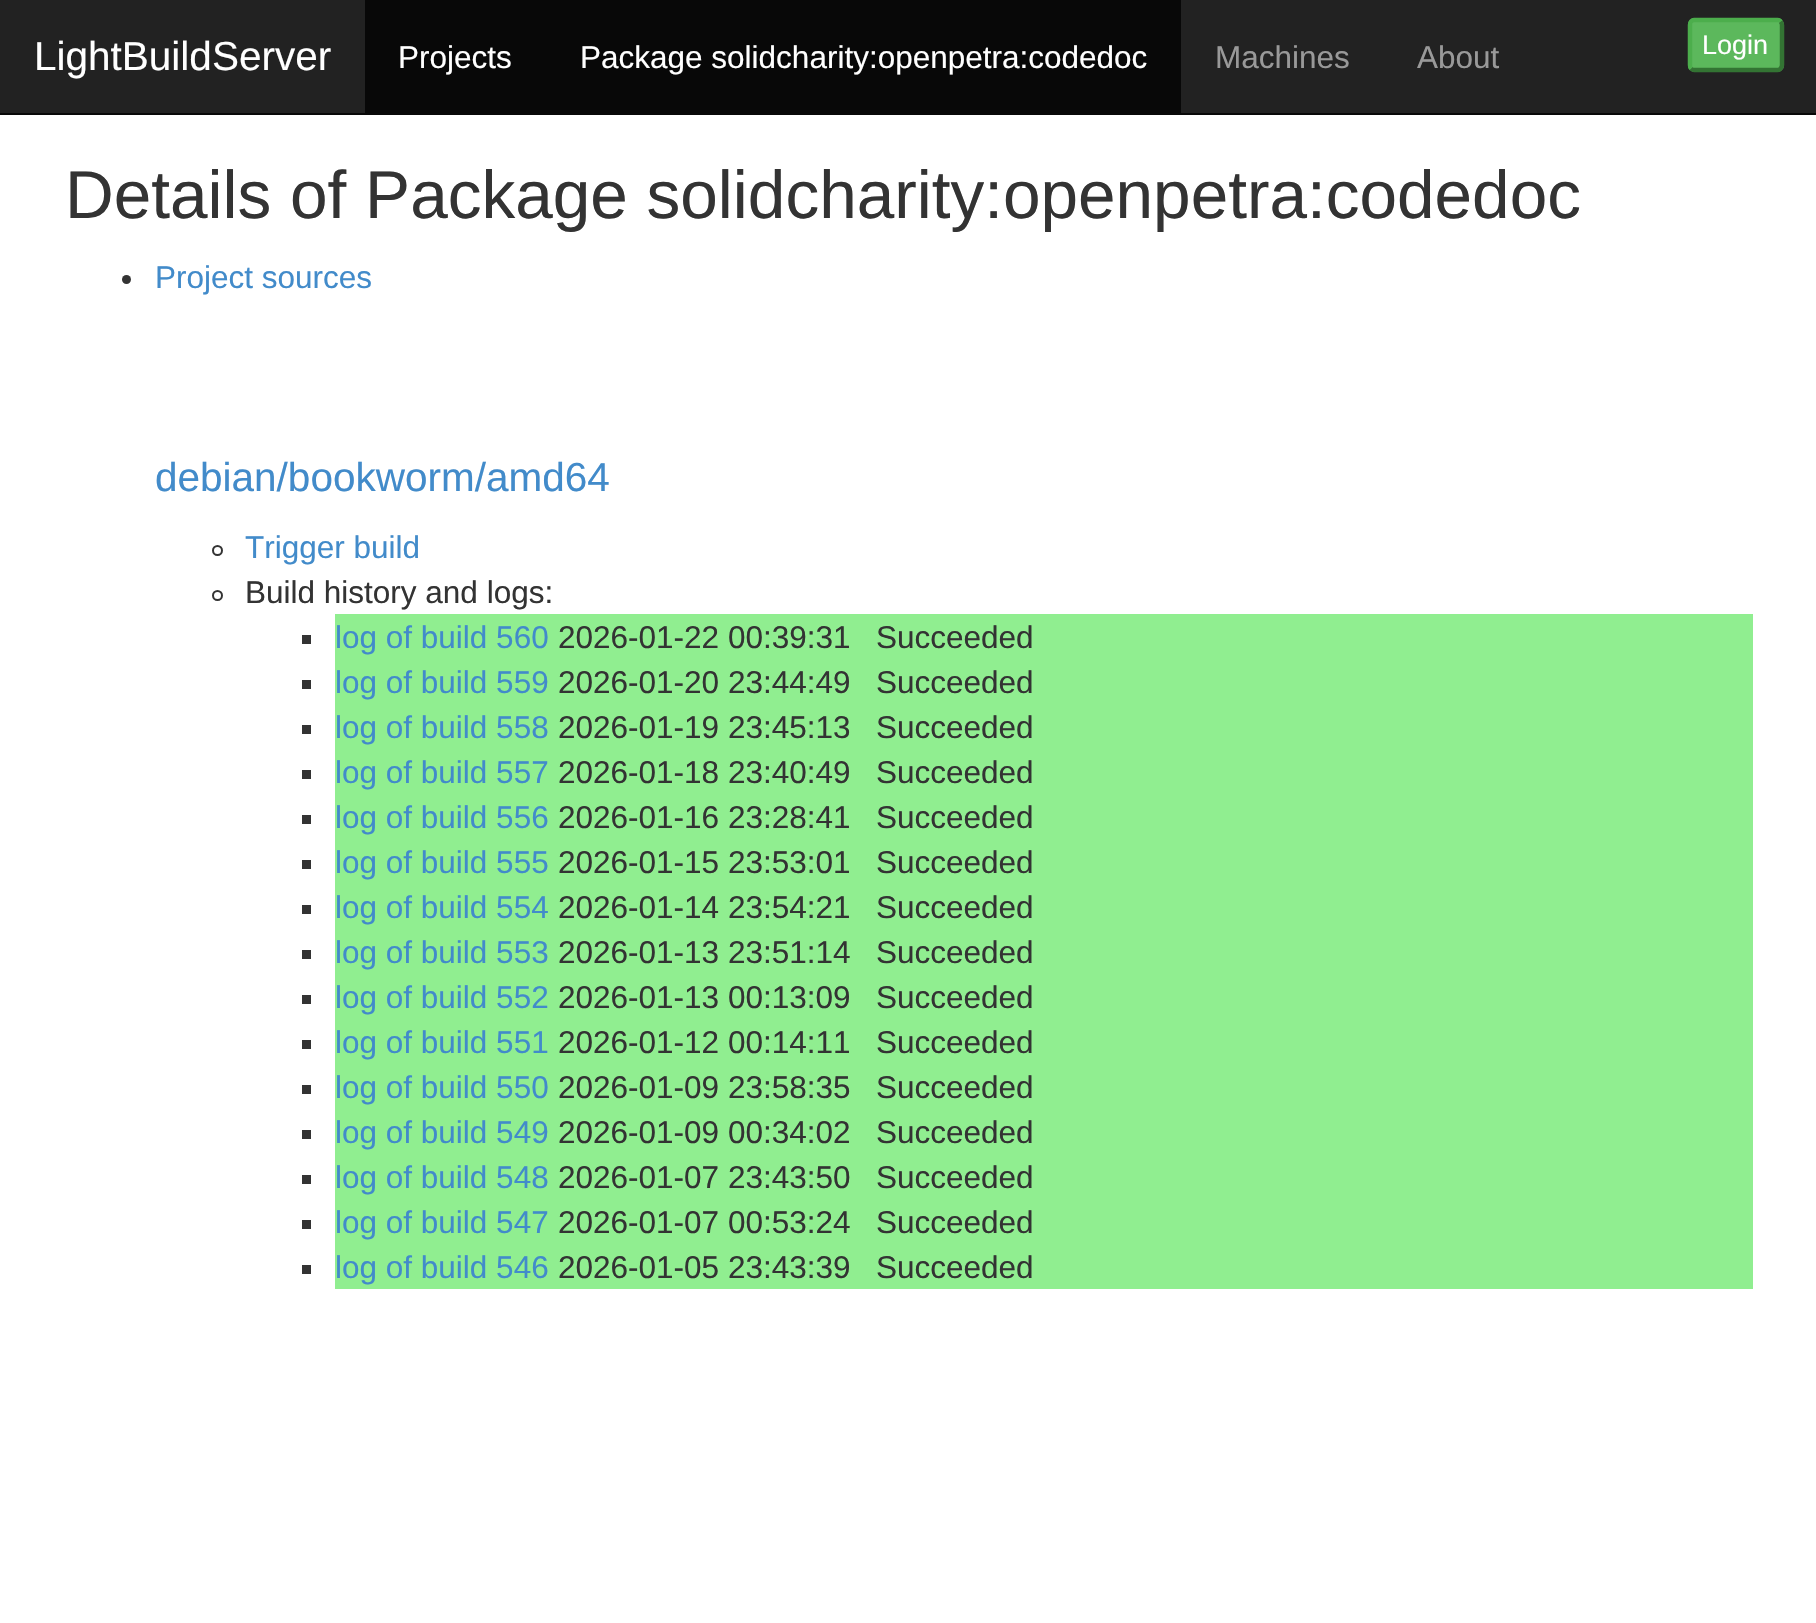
#include "include/core/SkBlurTypes.h"
#include "include/core/SkCanvas.h"
#include "include/core/SkData.h"
#include "include/core/SkFont.h"
#include "include/core/SkFontMgr.h"
#include "include/core/SkImage.h"
#include "include/core/SkMaskFilter.h"
#include "include/core/SkPaint.h"
#include "include/core/SkPathBuilder.h"
#include "include/core/SkTextBlob.h"
#include "include/effects/SkDashPathEffect.h"
#include "include/effects/SkGradientShader.h"
#include "include/utils/SkParsePath.h"

extern sk_sp<SkFontMgr> fontMgr;

void draw(SkCanvas* canvas) {
    SkPaint p;
    p.setAntiAlias(true);
    auto font = [&](const char* family, int weight, float size, bool italic = false) {
        SkFontStyle style(weight, SkFontStyle::kNormal_Width,
            italic ? SkFontStyle::kItalic_Slant : SkFontStyle::kUpright_Slant);
        SkFont result(fontMgr->matchFamilyStyle(family, style), size);
        result.setSubpixel(true);
        return result;
    };
    canvas->clear(0xFFFFFFFF);
    p.setColor(0xFF222222);
    canvas->drawRect(SkRect::MakeLTRB(0, 0, 1816, 113), p);
    p.setColor(0xFF080808);
    canvas->drawRect(SkRect::MakeLTRB(0, 113, 1816, 115), p);
    auto font1 = font("Liberation Sans", 400, 40.5f);
    p.setColor(0xFFFFFFFF);
    canvas->drawString("LightBuildServer", 34, 70, font1, p);
    p.setColor(0xFF080808);
    canvas->drawRect(SkRect::MakeLTRB(365, 0, 1181, 113), p);
    auto font2 = font("Liberation Sans", 400, 31.5f);
    p.setColor(0xFFFFFFFF);
    canvas->drawString("Projects", 398, 68, font2, p);
    canvas->drawString("Package solidcharity:openpetra:codedoc", 580, 68, font2, p);
    p.setColor(0xFF999999);
    canvas->drawString("Machines", 1215, 68, font2, p);
    canvas->drawString("About", 1417, 68, font2, p);
    p.setColor(0xFF5CB85C);
    canvas->drawRoundRect(SkRect::MakeLTRB(1688, 18, 1784, 72), 7, 7, p);
    p.setStyle(SkPaint::kStroke_Style);
    p.setStrokeWidth(4.5f);
    p.setColor(0xFF337433);
    canvas->drawPath(SkPathBuilder().moveTo(1780.5f, 21.5f).cubicTo(1781.5f, 22.5f, 1782, 23.5f, 1782, 25).lineTo(1782, 65).cubicTo(1782, 66.5f, 1781.5f, 67.5f, 1780.5f, 68.5f).cubicTo(1780, 69.5f, 1778.5f, 70, 1777.5f, 70).lineTo(1694, 70).cubicTo(1693, 70, 1692, 69.5f, 1691, 68.5f).detach(), p);
    p.setColor(0xFF4CAE4C);
    canvas->drawPath(SkPathBuilder().moveTo(1691, 68.5f).cubicTo(1690, 67.5f, 1690, 66.5f, 1690, 65).lineTo(1690, 25).cubicTo(1690, 23.5f, 1690, 22.5f, 1691, 21.5f).cubicTo(1692, 20.5f, 1693, 20, 1694, 20).lineTo(1777.5f, 20).cubicTo(1778.5f, 20, 1780, 20.5f, 1780.5f, 21.5f).detach(), p);
    auto font3 = font("Liberation Sans", 400, 27);
    p.setStyle(SkPaint::kFill_Style);
    p.setColor(0xFFFFFFFF);
    canvas->drawString("Login", 1702, 54, font3, p);
    auto font4 = font("Liberation Sans", 400, 67.5f);
    p.setColor(0xFF333333);
    canvas->drawString("Details of Package solidcharity:openpetra:codedoc", 65, 218, font4, p);
    canvas->drawCircle(126.5f, 279.5f, 4.5f, p);
    p.setColor(0xFF428BCA);
    canvas->drawString("Project sources", 155, 288, font2, p);
    canvas->drawString("debian/bookworm/amd64", 155, 491, font1, p);
    p.setStyle(SkPaint::kStroke_Style);
    p.setStrokeWidth(2);
    p.setColor(0xFF333333);
    canvas->drawCircle(217.5f, 550.5f, 4.5f, p);
    p.setStyle(SkPaint::kFill_Style);
    p.setColor(0xFF428BCA);
    canvas->drawString("Trigger build", 245, 558, font2, p);
    p.setStyle(SkPaint::kStroke_Style);
    p.setColor(0xFF333333);
    canvas->drawCircle(217.5f, 595.5f, 4.5f, p);
    p.setStyle(SkPaint::kFill_Style);
    canvas->drawString("Build history and logs:", 245, 603, font2, p);
    p.setColor(0xFF90EE90);
    canvas->drawRect(SkRect::MakeLTRB(335, 614, 1753, 1289), p);
    p.setColor(0xFF333333);
    canvas->drawRect(SkRect::MakeLTRB(302, 635, 311, 644), p);
    p.setColor(0xFF428BCA);
    canvas->drawString("log of build 560", 335, 648, font2, p);
    p.setColor(0xFF333333);
    canvas->drawString("2026-01-22 00:39:31", 558, 648, font2, p);
    canvas->drawString("Succeeded", 876, 648, font2, p);
    canvas->drawRect(SkRect::MakeLTRB(302, 680, 311, 689), p);
    p.setColor(0xFF428BCA);
    canvas->drawString("log of build 559", 335, 693, font2, p);
    p.setColor(0xFF333333);
    canvas->drawString("2026-01-20 23:44:49", 558, 693, font2, p);
    canvas->drawString("Succeeded", 876, 693, font2, p);
    canvas->drawRect(SkRect::MakeLTRB(302, 725, 311, 734), p);
    p.setColor(0xFF428BCA);
    canvas->drawString("log of build 558", 335, 738, font2, p);
    p.setColor(0xFF333333);
    canvas->drawString("2026-01-19 23:45:13", 558, 738, font2, p);
    canvas->drawString("Succeeded", 876, 738, font2, p);
    canvas->drawRect(SkRect::MakeLTRB(302, 770, 311, 779), p);
    p.setColor(0xFF428BCA);
    canvas->drawString("log of build 557", 335, 783, font2, p);
    p.setColor(0xFF333333);
    canvas->drawString("2026-01-18 23:40:49", 558, 783, font2, p);
    canvas->drawString("Succeeded", 876, 783, font2, p);
    canvas->drawRect(SkRect::MakeLTRB(302, 815, 311, 824), p);
    p.setColor(0xFF428BCA);
    canvas->drawString("log of build 556", 335, 828, font2, p);
    p.setColor(0xFF333333);
    canvas->drawString("2026-01-16 23:28:41", 558, 828, font2, p);
    canvas->drawString("Succeeded", 876, 828, font2, p);
    canvas->drawRect(SkRect::MakeLTRB(302, 860, 311, 869), p);
    p.setColor(0xFF428BCA);
    canvas->drawString("log of build 555", 335, 873, font2, p);
    p.setColor(0xFF333333);
    canvas->drawString("2026-01-15 23:53:01", 558, 873, font2, p);
    canvas->drawString("Succeeded", 876, 873, font2, p);
    canvas->drawRect(SkRect::MakeLTRB(302, 905, 311, 914), p);
    p.setColor(0xFF428BCA);
    canvas->drawString("log of build 554", 335, 918, font2, p);
    p.setColor(0xFF333333);
    canvas->drawString("2026-01-14 23:54:21", 558, 918, font2, p);
    canvas->drawString("Succeeded", 876, 918, font2, p);
    canvas->drawRect(SkRect::MakeLTRB(302, 950, 311, 959), p);
    p.setColor(0xFF428BCA);
    canvas->drawString("log of build 553", 335, 963, font2, p);
    p.setColor(0xFF333333);
    canvas->drawString("2026-01-13 23:51:14", 558, 963, font2, p);
    canvas->drawString("Succeeded", 876, 963, font2, p);
    canvas->drawRect(SkRect::MakeLTRB(302, 995, 311, 1004), p);
    p.setColor(0xFF428BCA);
    canvas->drawString("log of build 552", 335, 1008, font2, p);
    p.setColor(0xFF333333);
    canvas->drawString("2026-01-13 00:13:09", 558, 1008, font2, p);
    canvas->drawString("Succeeded", 876, 1008, font2, p);
    canvas->drawRect(SkRect::MakeLTRB(302, 1040, 311, 1049), p);
    p.setColor(0xFF428BCA);
    canvas->drawString("log of build 551", 335, 1053, font2, p);
    p.setColor(0xFF333333);
    canvas->drawString("2026-01-12 00:14:11", 558, 1053, font2, p);
    canvas->drawString("Succeeded", 876, 1053, font2, p);
    canvas->drawRect(SkRect::MakeLTRB(302, 1085, 311, 1094), p);
    p.setColor(0xFF428BCA);
    canvas->drawString("log of build 550", 335, 1098, font2, p);
    p.setColor(0xFF333333);
    canvas->drawString("2026-01-09 23:58:35", 558, 1098, font2, p);
    canvas->drawString("Succeeded", 876, 1098, font2, p);
    canvas->drawRect(SkRect::MakeLTRB(302, 1130, 311, 1139), p);
    p.setColor(0xFF428BCA);
    canvas->drawString("log of build 549", 335, 1143, font2, p);
    p.setColor(0xFF333333);
    canvas->drawString("2026-01-09 00:34:02", 558, 1143, font2, p);
    canvas->drawString("Succeeded", 876, 1143, font2, p);
    canvas->drawRect(SkRect::MakeLTRB(302, 1175, 311, 1184), p);
    p.setColor(0xFF428BCA);
    canvas->drawString("log of build 548", 335, 1188, font2, p);
    p.setColor(0xFF333333);
    canvas->drawString("2026-01-07 23:43:50", 558, 1188, font2, p);
    canvas->drawString("Succeeded", 876, 1188, font2, p);
    canvas->drawRect(SkRect::MakeLTRB(302, 1220, 311, 1229), p);
    p.setColor(0xFF428BCA);
    canvas->drawString("log of build 547", 335, 1233, font2, p);
    p.setColor(0xFF333333);
    canvas->drawString("2026-01-07 00:53:24", 558, 1233, font2, p);
    canvas->drawString("Succeeded", 876, 1233, font2, p);
    canvas->drawRect(SkRect::MakeLTRB(302, 1265, 311, 1274), p);
    p.setColor(0xFF428BCA);
    canvas->drawString("log of build 546", 335, 1278, font2, p);
    p.setColor(0xFF333333);
    canvas->drawString("2026-01-05 23:43:39", 558, 1278, font2, p);
    canvas->drawString("Succeeded", 876, 1278, font2, p);
}
